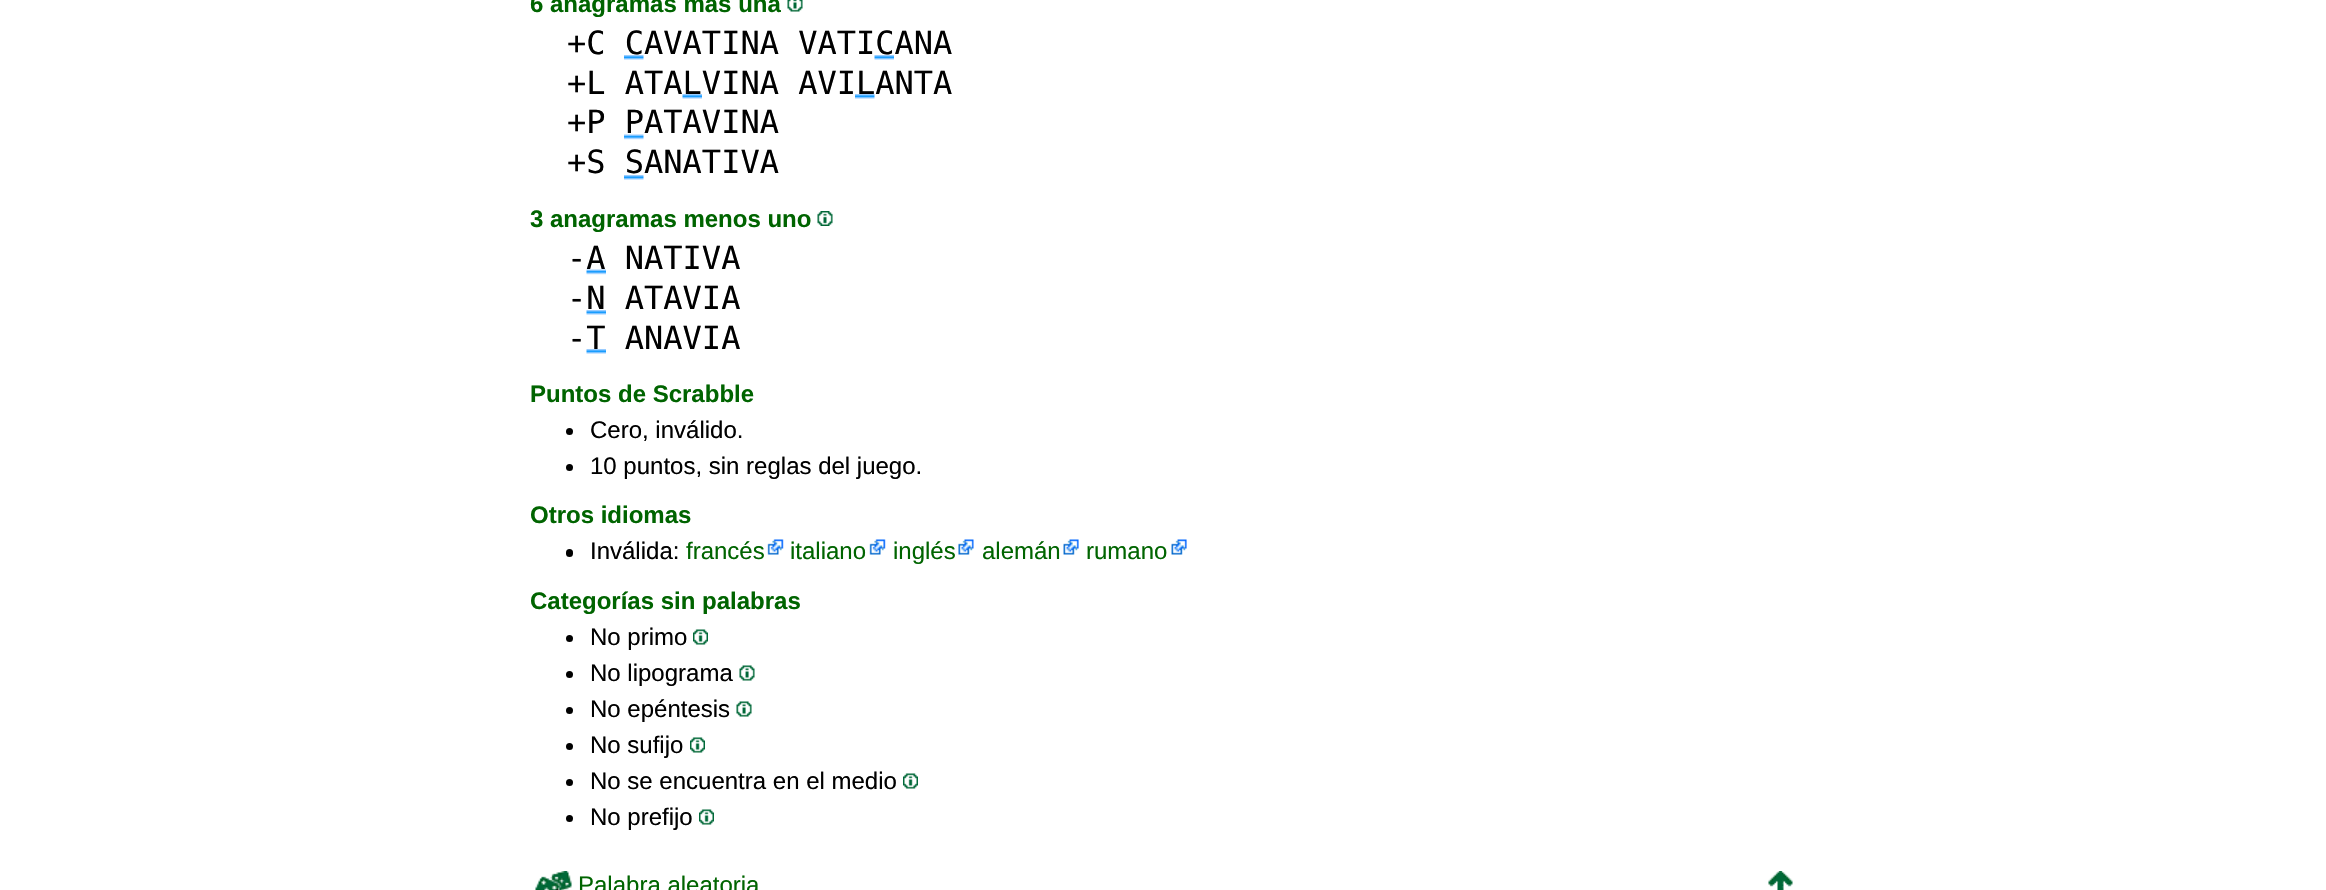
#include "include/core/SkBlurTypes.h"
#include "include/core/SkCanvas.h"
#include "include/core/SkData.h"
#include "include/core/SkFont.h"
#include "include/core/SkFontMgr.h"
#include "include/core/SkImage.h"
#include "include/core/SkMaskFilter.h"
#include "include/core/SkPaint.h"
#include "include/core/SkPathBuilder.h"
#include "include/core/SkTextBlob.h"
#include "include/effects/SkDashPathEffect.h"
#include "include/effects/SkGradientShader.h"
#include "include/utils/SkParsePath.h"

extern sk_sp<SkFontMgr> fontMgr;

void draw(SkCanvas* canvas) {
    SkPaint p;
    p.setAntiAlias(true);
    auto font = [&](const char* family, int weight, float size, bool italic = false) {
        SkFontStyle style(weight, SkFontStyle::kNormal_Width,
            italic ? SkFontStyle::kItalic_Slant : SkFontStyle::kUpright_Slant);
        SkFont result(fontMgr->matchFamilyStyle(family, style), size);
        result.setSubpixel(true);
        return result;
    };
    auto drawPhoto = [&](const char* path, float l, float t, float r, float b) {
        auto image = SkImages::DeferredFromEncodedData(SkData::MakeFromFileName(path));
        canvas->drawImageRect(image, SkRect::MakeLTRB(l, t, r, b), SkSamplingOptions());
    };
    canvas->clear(0xFFFFFFFF);
    auto font1 = font("Liberation Sans", 700, 24);
    p.setColor(0xFF006400);
    canvas->drawString("6 anagramas más una", 530, 12, font1, p);
    drawPhoto("media/1.png", 787, 0, 803, 12);
    auto font2 = font("DejaVu Sans Mono", 400, 32);
    p.setColor(0xFF000000);
    canvas->drawString("+C CAVATINA VATICANA", 567, 54, font2, p);
    drawPhoto("media/2.png", 624, 55, 644, 60);
    drawPhoto("media/3.png", 874, 55, 894, 60);
    canvas->drawString("+L ATALVINA AVILANTA", 567, 94, font2, p);
    drawPhoto("media/3.png", 682, 94, 702, 99);
    drawPhoto("media/2.png", 855, 94, 875, 99);
    canvas->drawString("+P PATAVINA", 567, 133, font2, p);
    drawPhoto("media/4.png", 624, 134, 644, 140);
    canvas->drawString("+S SANATIVA", 567, 173, font2, p);
    drawPhoto("media/2.png", 624, 175, 644, 180);
    p.setColor(0xFF006400);
    canvas->drawString("3 anagramas menos uno", 530, 227, font1, p);
    drawPhoto("media/5.png", 817, 211, 833, 226);
    p.setColor(0xFF000000);
    canvas->drawString("-A NATIVA", 567, 269, font2, p);
    drawPhoto("media/6.png", 586, 269, 606, 275);
    canvas->drawString("-N ATAVIA", 567, 309, font2, p);
    drawPhoto("media/3.png", 586, 310, 606, 315);
    canvas->drawString("-T ANAVIA", 567, 349, font2, p);
    drawPhoto("media/3.png", 586, 349, 606, 354);
    p.setColor(0xFF006400);
    canvas->drawString("Puntos de Scrabble", 530, 402, font1, p);
    p.setColor(0xFF000000);
    canvas->drawCircle(569.5f, 431.5f, 3.5f, p);
    auto font3 = font("Liberation Sans", 400, 24);
    canvas->drawString("Cero, inválido.", 590, 438, font3, p);
    canvas->drawCircle(569.5f, 467.5f, 3.5f, p);
    canvas->drawString("10 puntos, sin reglas del juego.", 590, 474, font3, p);
    p.setColor(0xFF006400);
    canvas->drawString("Otros idiomas", 530, 523, font1, p);
    p.setColor(0xFF000000);
    canvas->drawRoundRect(SkRect::MakeLTRB(566, 549, 573, 557), 3.5f, 3.5f, p);
    canvas->drawString("Inválida:", 590, 559, font3, p);
    p.setColor(0xFF006400);
    canvas->drawString("francés", 686, 559, font3, p);
    drawPhoto("media/7.png", 767, 539, 784, 555);
    canvas->drawString("italiano", 790, 559, font3, p);
    drawPhoto("media/7.png", 869, 539, 886, 555);
    canvas->drawString("inglés", 893, 559, font3, p);
    drawPhoto("media/8.png", 958, 539, 974, 555);
    canvas->drawString("alemán", 982, 559, font3, p);
    drawPhoto("media/9.png", 1063, 539, 1079, 555);
    canvas->drawString("rumano", 1086, 559, font3, p);
    drawPhoto("media/9.png", 1171, 539, 1187, 555);
    canvas->drawString("Categorías sin palabras", 530, 609, font1, p);
    p.setColor(0xFF000000);
    canvas->drawCircle(569.5f, 638.5f, 3.5f, p);
    canvas->drawString("No primo", 590, 645, font3, p);
    drawPhoto("media/10.png", 693, 629, 708, 645);
    canvas->drawCircle(569.5f, 674.5f, 3.5f, p);
    canvas->drawString("No lipograma", 590, 681, font3, p);
    drawPhoto("media/11.png", 739, 665, 755, 681);
    canvas->drawCircle(569.5f, 710.5f, 3.5f, p);
    canvas->drawString("No epéntesis", 590, 717, font3, p);
    drawPhoto("media/11.png", 736, 701, 752, 717);
    canvas->drawCircle(569.5f, 746.5f, 3.5f, p);
    canvas->drawString("No sufijo", 590, 753, font3, p);
    drawPhoto("media/10.png", 690, 737, 705, 753);
    canvas->drawCircle(569.5f, 782.5f, 3.5f, p);
    canvas->drawString("No se encuentra en el medio", 590, 789, font3, p);
    drawPhoto("media/10.png", 903, 773, 918, 789);
    canvas->drawCircle(569.5f, 818.5f, 3.5f, p);
    canvas->drawString("No prefijo", 590, 825, font3, p);
    drawPhoto("media/10.png", 699, 809, 714, 825);
    drawPhoto("media/12.png", 535, 871, 572, 890);
    p.setColor(0xFF006400);
    canvas->drawString("Palabra aleatoria", 578, 893, font3, p);
    drawPhoto("media/13.png", 1768, 871, 1793, 890);
}
